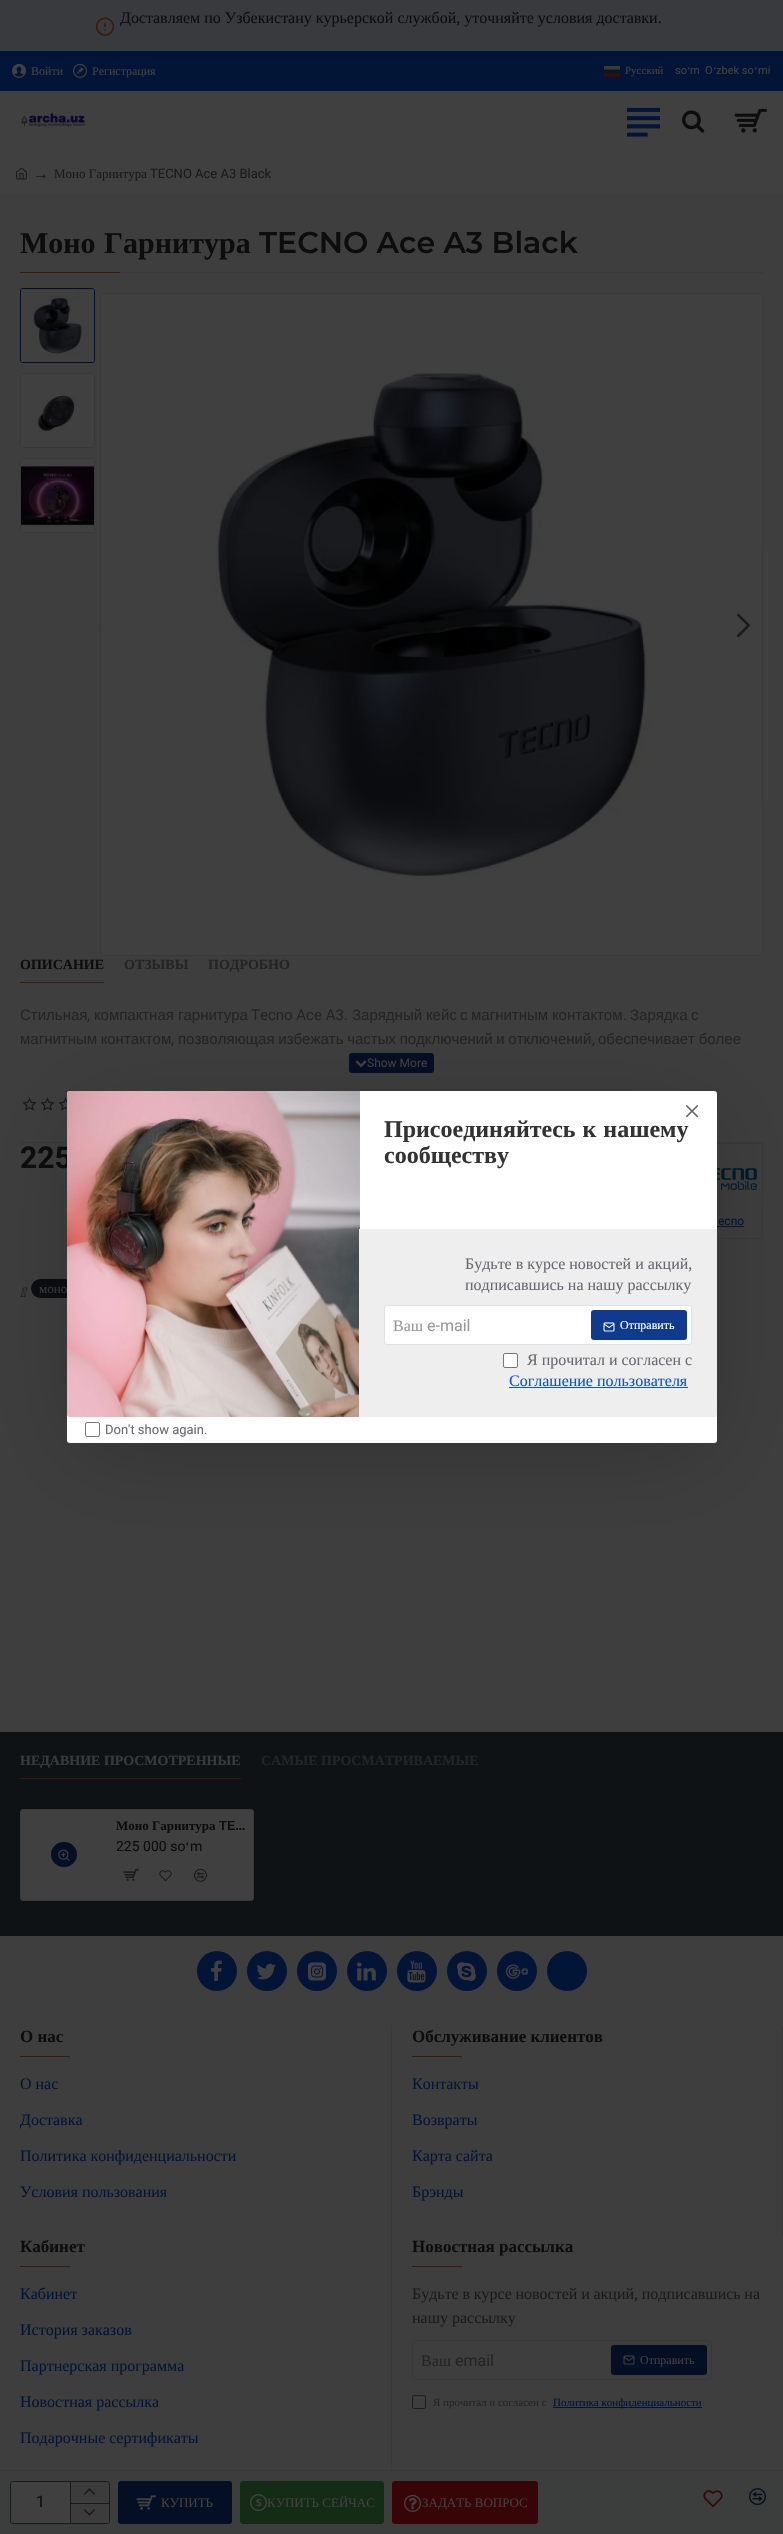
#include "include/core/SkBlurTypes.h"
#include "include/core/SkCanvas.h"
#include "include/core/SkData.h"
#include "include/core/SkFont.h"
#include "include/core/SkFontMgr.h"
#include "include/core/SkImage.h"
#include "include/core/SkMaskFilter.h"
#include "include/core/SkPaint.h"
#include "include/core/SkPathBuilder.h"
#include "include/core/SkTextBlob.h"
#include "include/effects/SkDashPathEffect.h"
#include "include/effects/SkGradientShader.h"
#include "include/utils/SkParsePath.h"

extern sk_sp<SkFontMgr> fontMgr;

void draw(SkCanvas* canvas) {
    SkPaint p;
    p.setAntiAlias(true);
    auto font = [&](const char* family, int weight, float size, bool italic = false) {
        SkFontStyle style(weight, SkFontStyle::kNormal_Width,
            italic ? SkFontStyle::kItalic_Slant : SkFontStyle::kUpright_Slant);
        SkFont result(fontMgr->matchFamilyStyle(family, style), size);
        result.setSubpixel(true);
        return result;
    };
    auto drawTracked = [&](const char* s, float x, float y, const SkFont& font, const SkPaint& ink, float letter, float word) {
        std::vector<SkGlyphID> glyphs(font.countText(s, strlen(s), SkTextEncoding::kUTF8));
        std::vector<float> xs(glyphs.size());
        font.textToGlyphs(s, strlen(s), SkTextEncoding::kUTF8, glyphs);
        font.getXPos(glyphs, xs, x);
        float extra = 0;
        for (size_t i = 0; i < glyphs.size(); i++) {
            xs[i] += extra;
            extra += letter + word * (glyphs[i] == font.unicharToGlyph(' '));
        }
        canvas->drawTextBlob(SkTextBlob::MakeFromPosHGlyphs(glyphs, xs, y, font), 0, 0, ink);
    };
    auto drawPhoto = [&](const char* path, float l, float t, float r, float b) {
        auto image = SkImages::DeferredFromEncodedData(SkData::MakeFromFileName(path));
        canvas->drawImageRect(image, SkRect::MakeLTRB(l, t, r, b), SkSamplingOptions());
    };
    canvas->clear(0xFF383A3E);
    drawPhoto("media/1.png", 95, 17, 115, 36);
    auto font1 = font("Liberation Serif", 400, 16);
    p.setColor(0xFF0D0D0D);
    canvas->drawString("Доставляем по Узбекистану курьерской службой, уточняйте условия доставки.", 120, 23, font1, p);
    p.setColor(0xFF3E3E3E);
    canvas->drawRect(SkRect::MakeLTRB(0, 195, 783, 2470), p);
    p.setColor(0xFF031536);
    canvas->drawRect(SkRect::MakeLTRB(0, 51, 783, 91), p);
    drawPhoto("media/2.png", 12, 63, 26, 78);
    auto font2 = font("Liberation Serif", 400, 12);
    p.setColor(0xFF404040);
    canvas->drawString("Войти", 31, 75, font2, p);
    drawPhoto("media/3.png", 73, 63, 87, 78);
    canvas->drawString("Регистрация", 92, 75, font2, p);
    drawPhoto("media/4.png", 604, 66, 620, 77);
    auto font3 = font("Liberation Serif", 400, 11);
    canvas->drawString("Русский", 625, 74, font3, p);
    auto font4 = font("Roboto", 400, 11);
    canvas->drawString("so", 675, 74, font4, p);
    canvas->drawString("ʻ", 687, 74, font3, p);
    canvas->drawString("m", 690, 74, font4, p);
    canvas->drawString("O", 705, 74, font4, p);
    canvas->drawString("ʻ", 713, 74, font3, p);
    canvas->drawString("zbek so", 716, 74, font4, p);
    canvas->drawString("ʻ", 754, 74, font3, p);
    canvas->drawString("mi", 758, 74, font4, p);
    canvas->drawRect(SkRect::MakeLTRB(0, 91, 783, 195), p);
    drawPhoto("media/5.png", 21, 113, 86, 127);
    drawPhoto("media/6.png", 627, 107, 660, 137);
    drawPhoto("media/7.png", 682, 110, 705, 133);
    drawPhoto("media/8.png", 734, 108, 768, 133);
    drawPhoto("media/9.png", 16, 167, 27, 180);
    p.setColor(0xFF1A1A1D);
    canvas->drawString("→", 33, 179, font1, p);
    auto font5 = font("Liberation Serif", 400, 13);
    canvas->drawString("Моно Гарнитура", 54, 178, font5, p);
    auto font6 = font("Roboto", 400, 13);
    canvas->drawString("TECNO Ace A3 Black", 150, 178, font6, p);
    p.setColor(0xFF393939);
    canvas->drawRect(SkRect::MakeLTRB(120, 272, 763, 273), p);
    auto font7 = font("Liberation Serif", 700, 30);
    p.setColor(0xFF0D0D0D);
    canvas->drawString("Моно", 20, 253, font7, p);
    canvas->drawString("Гарнитура", 104, 253, font7, p);
    auto font8 = font("Montserrat", 100, 30);
    canvas->drawString("TECNO Ace A3 Black", 259, 253, font8, p);
    p.setColor(0xFF3A1A0C);
    canvas->drawRect(SkRect::MakeLTRB(20, 272, 120, 273), p);
    p.setStyle(SkPaint::kStroke_Style);
    p.setStrokeWidth(1);
    p.setColor(0xFF040F23);
    canvas->drawRoundRect(SkRect::MakeLTRB(20.5f, 288.5f, 94.5f, 362.5f), 2.5f, 2.5f, p);
    drawPhoto("media/10.png", 21, 289, 94, 362);
    p.setColor(0xFF393939);
    canvas->drawRoundRect(SkRect::MakeLTRB(20.5f, 373.5f, 94.5f, 447.5f), 2.5f, 2.5f, p);
    drawPhoto("media/11.png", 21, 374, 94, 447);
    canvas->drawRoundRect(SkRect::MakeLTRB(20.5f, 458.5f, 94.5f, 532.5f), 2.5f, 2.5f, p);
    drawPhoto("media/12.png", 21, 459, 94, 532);
    canvas->drawRoundRect(SkRect::MakeLTRB(100.5f, 293.5f, 762.5f, 955.5f), 2.5f, 2.5f, p);
    drawPhoto("media/13.png", 101, 294, 762, 955);
    drawPhoto("media/14.png", 737, 613, 750, 638);
    p.setStyle(SkPaint::kFill_Style);
    p.setColor(0xFF3A1A0C);
    canvas->drawRect(SkRect::MakeLTRB(20, 982, 104, 983), p);
    auto font9 = font("Liberation Serif", 700, 14);
    p.setColor(0xFF0D0D0D);
    canvas->drawString("ОПИСАНИЕ", 20, 969, font9, p);
    p.setColor(0xFF232426);
    canvas->drawString("ОТЗЫВЫ", 124, 969, font9, p);
    canvas->drawString("ПОДРОБНО", 208, 969, font9, p);
    auto font10 = font("Liberation Sans", 400, 15);
    canvas->drawString("Стильная", 20, 1020, font10, p);
    auto font11 = font("Roboto", 400, 15);
    canvas->drawString(",", 87, 1020, font11, p);
    canvas->drawString("компактная", 94, 1020, font10, p);
    canvas->drawString("гарнитура", 178, 1020, font10, p);
    canvas->drawString("Tecno Ace A3.", 251, 1020, font11, p);
    {
        const struct { const char* s; float x, y; } items[] = {
            {"Зарядный", 352, 1020},
            {"кейс", 426, 1020},
            {"с", 460, 1020},
            {"магнитным", 471, 1020},
            {"контактом", 552, 1020},
        };
        for (auto [s, x, y] : items) {
            canvas->drawString(s, x, y, font10, p);
        }
    }
    canvas->drawString(".", 623, 1020, font11, p);
    canvas->drawString("Зарядка", 630, 1020, font10, p);
    canvas->drawString("с", 691, 1020, font10, p);
    drawTracked("магнитным контактом", 20, 1044, font10, p, 0, -0.5f);
    canvas->drawString(",", 171, 1044, font11, p);
    drawTracked("позволяющая избежать частых подключений и отключений", 178, 1044, font10, p, 0, -0.5f);
    canvas->drawString(",", 592, 1044, font11, p);
    drawTracked("обеспечивает более", 598, 1044, font10, p, 0, -0.5f);
    p.setColor(0xFF040F23);
    canvas->drawRoundRect(SkRect::MakeLTRB(349, 1053, 434, 1073), 3, 3, p);
    drawPhoto("media/15.png", 355, 1060, 367, 1068);
    auto font12 = font("Roboto", 400, 12);
    p.setColor(0xFF404040);
    canvas->drawString("Show More", 367, 1067, font12, p);
    p.setColor(0xFF393939);
    canvas->drawRect(SkRect::MakeLTRB(20, 1142, 763, 1143), p);
    drawPhoto("media/16.png", 22, 1097, 37, 1111);
    drawPhoto("media/16.png", 40, 1097, 55, 1111);
    drawPhoto("media/17.png", 58, 1097, 67, 1111);
    auto font13 = font("Roboto", 700, 30);
    p.setColor(0xFF0D0D0D);
    canvas->drawString("225", 20, 1168, font13, p);
    p.setStyle(SkPaint::kStroke_Style);
    p.setColor(0xFF393939);
    canvas->drawRect(SkRect::MakeLTRB(691.5f, 1143.5f, 762.5f, 1238.5f), p);
    drawPhoto("media/18.png", 717, 1168, 757, 1190);
    p.setStyle(SkPaint::kFill_Style);
    p.setColor(0xFF031536);
    canvas->drawString("ecno", 718, 1225, font12, p);
    {
        const struct { float l, t, r, b; SkColor color; } items[] = {
            {710, 1226, 744, 1227, 0xFF031536},
            {0, 2471, 783, 2534, 0xFF3C3D3D},
            {0, 2470, 783, 2471, 0xFF393939},
        };
        for (auto [l, t, r, b, color] : items) {
            p.setColor(color);
            canvas->drawRect(SkRect::MakeLTRB(l, t, r, b), p);
        }
    }
    p.setStyle(SkPaint::kStroke_Style);
    p.setColor(0xFF1A1A1D);
    canvas->drawRoundRect(SkRect::MakeLTRB(10.5f, 2481.5f, 109.5f, 2523.5f), 2.5f, 2.5f, p);
    p.setStyle(SkPaint::kFill_Style);
    p.setColor(0xFF404040);
    canvas->drawPath(SkPathBuilder().moveTo(13, 2482).lineTo(70, 2482).lineTo(70, 2523).lineTo(13, 2523).cubicTo(12, 2523, 11, 2522, 11, 2521).lineTo(11, 2484).cubicTo(11, 2483, 12, 2482, 13, 2482).close().detach(), p);
    auto font14 = font("Roboto", 400, 16);
    p.setColor(0xFF0D0D0D);
    canvas->drawString("1", 36, 2507, font14, p);
    p.setColor(0xFF3C3C3C);
    canvas->drawPath(SkPathBuilder().moveTo(71, 2482).lineTo(107, 2482).cubicTo(108, 2482, 109, 2483, 109, 2484).lineTo(109, 2503).lineTo(71, 2503).close().detach(), p);
    p.setColor(0xFF1A1A1D);
    canvas->drawRect(SkRect::MakeLTRB(70, 2482, 71, 2503), p);
    drawPhoto("media/19.png", 83, 2488, 95, 2495);
    p.setColor(0xFF3C3C3C);
    canvas->drawPath(SkPathBuilder().moveTo(71, 2504).lineTo(109, 2504).lineTo(109, 2521).cubicTo(109, 2522, 108, 2523, 107, 2523).lineTo(71, 2523).close().detach(), p);
    p.setColor(0xFF1A1A1D);
    canvas->drawRect(SkRect::MakeLTRB(70, 2503, 109, 2504), p);
    canvas->drawRect(SkRect::MakeLTRB(70, 2503, 71, 2523), p);
    drawPhoto("media/20.png", 83, 2509, 95, 2516);
    p.setColor(0xFF040F23);
    canvas->drawRoundRect(SkRect::MakeLTRB(118, 2481, 232, 2524), 3, 3, p);
    drawPhoto("media/21.png", 136, 2495, 156, 2510);
    p.setColor(0xFF404040);
    canvas->drawString("КУПИТЬ", 161, 2507, font5, p);
    p.setColor(0xFF142B15);
    canvas->drawRoundRect(SkRect::MakeLTRB(240, 2481, 384, 2524), 3, 3, p);
    drawPhoto("media/22.png", 250, 2494, 267, 2511);
    p.setColor(0xFF404040);
    canvas->drawString("КУПИТЬ СЕЙЧАС", 267, 2507, font5, p);
    p.setColor(0xFF370407);
    canvas->drawRoundRect(SkRect::MakeLTRB(392, 2481, 538, 2524), 3, 3, p);
    drawPhoto("media/23.png", 404, 2494, 422, 2512);
    p.setColor(0xFF404040);
    canvas->drawString("ЗАДАТЬ ВОПРОС", 422, 2507, font5, p);
    drawPhoto("media/24.png", 703, 2490, 723, 2508);
    drawPhoto("media/25.png", 749, 2488, 766, 2505);
    drawPhoto("media/26.png", 20, 1287, 28, 1297);
    p.setColor(0xFF0B0E10);
    canvas->drawRoundRect(SkRect::MakeLTRB(31, 1279, 75, 1298), 9.5f, 9.5f, p);
    p.setColor(0xFF3A3A3A);
    canvas->drawString("моно", 39, 1293, font5, p);
    p.setColor(0xFF0F1215);
    canvas->drawRect(SkRect::MakeLTRB(0, 1732, 783, 1936), p);
    p.setColor(0xFF3A1A0C);
    canvas->drawRect(SkRect::MakeLTRB(20, 1778, 241, 1779), p);
    p.setColor(0xFF3A3A3A);
    canvas->drawString("НЕДАВНИЕ ПРОСМОТРЕННЫЕ", 20, 1765, font9, p);
    p.setColor(0xFF232426);
    canvas->drawString("САМЫЕ ПРОСМАТРИВАЕМЫЕ", 261, 1765, font9, p);
    p.setColor(0xFF404040);
    canvas->drawRoundRect(SkRect::MakeLTRB(20.5f, 1809.5f, 253.5f, 1900.5f), 2.5f, 2.5f, p);
    p.setStyle(SkPaint::kStroke_Style);
    p.setColor(0xFF393939);
    canvas->drawRoundRect(SkRect::MakeLTRB(20.5f, 1809.5f, 253.5f, 1900.5f), 2.5f, 2.5f, p);
    auto font15 = font("Liberation Serif", 700, 13);
    p.setStyle(SkPaint::kFill_Style);
    p.setColor(0xFF0D0D0D);
    canvas->drawString("Моно", 116, 1830, font15, p);
    canvas->drawString("Гарнитура", 152, 1830, font15, p);
    auto font16 = font("Montserrat", 100, 13);
    canvas->drawString("TE…", 219, 1830, font16, p);
    auto font17 = font("Roboto", 400, 14);
    canvas->drawString("225 000 so", 116, 1851, font17, p);
    auto font18 = font("Liberation Serif", 400, 14);
    canvas->drawString("ʻ", 185, 1851, font18, p);
    canvas->drawString("m", 190, 1851, font17, p);
    drawPhoto("media/27.png", 123, 1868, 139, 1881);
    drawPhoto("media/28.png", 159, 1870, 172, 1882);
    drawPhoto("media/29.png", 194, 1869, 207, 1882);
    p.setColor(0xFF040F23);
    canvas->drawRoundRect(SkRect::MakeLTRB(51, 1842, 77, 1867), 12.5f, 12.5f, p);
    drawPhoto("media/30.png", 58, 1849, 70, 1861);
    p.setColor(0xFF031536);
    canvas->drawCircle(217, 1971, 20, p);
    drawPhoto("media/31.png", 211, 1960, 222, 1981);
    canvas->drawCircle(267, 1971, 20, p);
    drawPhoto("media/32.png", 256, 1963, 276, 1980);
    canvas->drawCircle(317, 1971, 20, p);
    drawPhoto("media/33.png", 308, 1962, 326, 1981);
    canvas->drawCircle(367, 1971, 20, p);
    drawPhoto("media/34.png", 357, 1962, 376, 1981);
    canvas->drawCircle(417, 1971, 20, p);
    drawPhoto("media/35.png", 407, 1960, 426, 1983);
    canvas->drawCircle(467, 1971, 20, p);
    drawPhoto("media/36.png", 457, 1962, 476, 1981);
    canvas->drawCircle(517, 1971, 20, p);
    drawPhoto("media/37.png", 506, 1964, 528, 1979);
    canvas->drawCircle(567, 1971, 20, p);
    p.setColor(0xFF393939);
    canvas->drawRect(SkRect::MakeLTRB(391, 2026, 392, 2470), p);
    auto font19 = font("Liberation Serif", 700, 17);
    p.setColor(0xFF0D0D0D);
    canvas->drawString("О нас", 20, 2042, font19, p);
    p.setColor(0xFF3A1A0C);
    canvas->drawRect(SkRect::MakeLTRB(20, 2056, 70, 2057), p);
    p.setColor(0xFF031536);
    {
        const struct { const char* s; float x, y; } items[] = {
            {"О нас", 20, 2089},
            {"Доставка", 20, 2125},
            {"Политика конфиденциальности", 20, 2161},
            {"Условия пользования", 20, 2197},
        };
        for (auto [s, x, y] : items) {
            canvas->drawString(s, x, y, font1, p);
        }
    }
    p.setColor(0xFF393939);
    canvas->drawRect(SkRect::MakeLTRB(782, 2026, 783, 2236), p);
    p.setColor(0xFF0D0D0D);
    canvas->drawString("Обслуживание клиентов", 412, 2042, font19, p);
    p.setColor(0xFF3A1A0C);
    canvas->drawRect(SkRect::MakeLTRB(412, 2056, 462, 2057), p);
    p.setColor(0xFF031536);
    {
        const struct { const char* s; float x, y; } items[] = {
            {"Контакты", 412, 2089},
            {"Возвраты", 412, 2125},
            {"Карта сайта", 412, 2161},
            {"Брэнды", 412, 2197},
        };
        for (auto [s, x, y] : items) {
            canvas->drawString(s, x, y, font1, p);
        }
    }
    p.setColor(0xFF0D0D0D);
    canvas->drawString("Кабинет", 20, 2252, font19, p);
    p.setColor(0xFF3A1A0C);
    canvas->drawRect(SkRect::MakeLTRB(20, 2266, 70, 2267), p);
    p.setColor(0xFF031536);
    {
        const struct { const char* s; float x, y; } items[] = {
            {"Кабинет", 20, 2299},
            {"История заказов", 20, 2335},
            {"Партнерская программа", 20, 2371},
            {"Новостная рассылка", 20, 2407},
            {"Подарочные сертификаты", 20, 2443},
        };
        for (auto [s, x, y] : items) {
            canvas->drawString(s, x, y, font1, p);
        }
    }
    p.setColor(0xFF0D0D0D);
    canvas->drawString("Новостная рассылка", 412, 2252, font19, p);
    p.setColor(0xFF3A1A0C);
    canvas->drawRect(SkRect::MakeLTRB(412, 2266, 462, 2267), p);
    p.setColor(0xFF1A1A1D);
    drawTracked("Будьте в курсе новостей и акций, подписавшись на", 412, 2299, font1, p, 0, -0.25f);
    canvas->drawString("нашу рассылку", 412, 2323, font1, p);
    p.setStyle(SkPaint::kStroke_Style);
    p.setColor(0xFF393939);
    canvas->drawRoundRect(SkRect::MakeLTRB(412.5f, 2340.5f, 711.5f, 2379.5f), 2.5f, 2.5f, p);
    p.setStyle(SkPaint::kFill_Style);
    p.setColor(0xFF232426);
    canvas->drawString("Ваш", 421, 2366, font1, p);
    canvas->drawString("email", 455, 2366, font14, p);
    p.setColor(0xFF040F23);
    canvas->drawRoundRect(SkRect::MakeLTRB(611, 2345, 707, 2375), 3, 3, p);
    drawPhoto("media/38.png", 623, 2355, 635, 2365);
    p.setColor(0xFF404040);
    canvas->drawString("Отправить", 640, 2364, font2, p);
    p.setStyle(SkPaint::kStroke_Style);
    p.setColor(0xFF1E1E1E);
    canvas->drawRoundRect(SkRect::MakeLTRB(412.5f, 2395.5f, 425.5f, 2408.5f), 1.5f, 1.5f, p);
    p.setStyle(SkPaint::kFill_Style);
    p.setColor(0xFF232426);
    canvas->drawString("Я прочитал и согласен с", 433, 2406, font3, p);
    p.setColor(0xFF031536);
    canvas->drawRect(SkRect::MakeLTRB(553, 2407, 702, 2408), p);
    canvas->drawString("Политика конфиденциальности", 553, 2406, font3, p);
    p.setColor(0x33000000);
    p.setMaskFilter(SkMaskFilter::MakeBlur(kNormal_SkBlurStyle, 45));
    canvas->drawRect(SkRect::MakeLTRB(77, 1116, 707, 1448), p);
    p.setMaskFilter(nullptr);
    p.setColor(0xFFFFFFFF);
    canvas->drawRoundRect(SkRect::MakeLTRB(67, 1091, 717, 1443), 3, 3, p);
    drawPhoto("media/39.png", 686, 1105, 698, 1118);
    drawPhoto("media/40.png", 67, 1091, 360, 1417);
    auto font20 = font("Liberation Serif", 700, 24);
    p.setColor(0xFF333333);
    drawTracked("Присоединяйтесь к нашему", 384, 1137, font20, p, 0, 1);
    canvas->drawString("сообществу", 384, 1163, font20, p);
    p.setColor(0xFFEEEEEE);
    canvas->drawPath(SkPathBuilder().moveTo(359, 1229).lineTo(717, 1229).lineTo(717, 1414).cubicTo(717, 1415.5f, 715.5f, 1417, 714, 1417).lineTo(359, 1417).close().detach(), p);
    p.setColor(0xFF696973);
    canvas->drawString("Будьте в курсе новостей и акций,", 465, 1269, font1, p);
    canvas->drawString("подписавшись на нашу рассылку", 465, 1290, font1, p);
    p.setColor(0xFFFFFFFF);
    canvas->drawRoundRect(SkRect::MakeLTRB(384.5f, 1305.5f, 691.5f, 1344.5f), 2.5f, 2.5f, p);
    p.setStyle(SkPaint::kStroke_Style);
    p.setColor(0xFFE2E2E2);
    canvas->drawRoundRect(SkRect::MakeLTRB(384.5f, 1305.5f, 691.5f, 1344.5f), 2.5f, 2.5f, p);
    p.setStyle(SkPaint::kFill_Style);
    p.setColor(0xFF999999);
    canvas->drawString("Ваш", 393, 1331, font1, p);
    canvas->drawString("e-mail", 427, 1331, font14, p);
    p.setColor(0xFF0F3A8D);
    canvas->drawRoundRect(SkRect::MakeLTRB(591, 1310, 687, 1340), 3, 3, p);
    drawPhoto("media/41.png", 603, 1322, 615, 1332);
    p.setColor(0xFFFFFFFF);
    canvas->drawString("Отправить", 620, 1329, font2, p);
    canvas->drawRoundRect(SkRect::MakeLTRB(503.5f, 1353.5f, 517.5f, 1367.5f), 1.5f, 1.5f, p);
    p.setStyle(SkPaint::kStroke_Style);
    p.setColor(0xFF767676);
    canvas->drawRoundRect(SkRect::MakeLTRB(503.5f, 1353.5f, 517.5f, 1367.5f), 1.5f, 1.5f, p);
    p.setStyle(SkPaint::kFill_Style);
    p.setColor(0xFF696973);
    canvas->drawString("Я прочитал и согласен с", 527, 1365, font1, p);
    p.setColor(0xFF0D52D6);
    canvas->drawString("Соглашение пользователя", 509, 1386, font1, p);
    canvas->drawRect(SkRect::MakeLTRB(509, 1387, 688, 1388), p);
    p.setStyle(SkPaint::kStroke_Style);
    p.setColor(0xFF767676);
    canvas->drawRoundRect(SkRect::MakeLTRB(85.5f, 1422.5f, 99.5f, 1436.5f), 1.5f, 1.5f, p);
    p.setStyle(SkPaint::kFill_Style);
    p.setColor(0xFF696973);
    canvas->drawString("Don't show again.", 105, 1434, font6, p);
}
